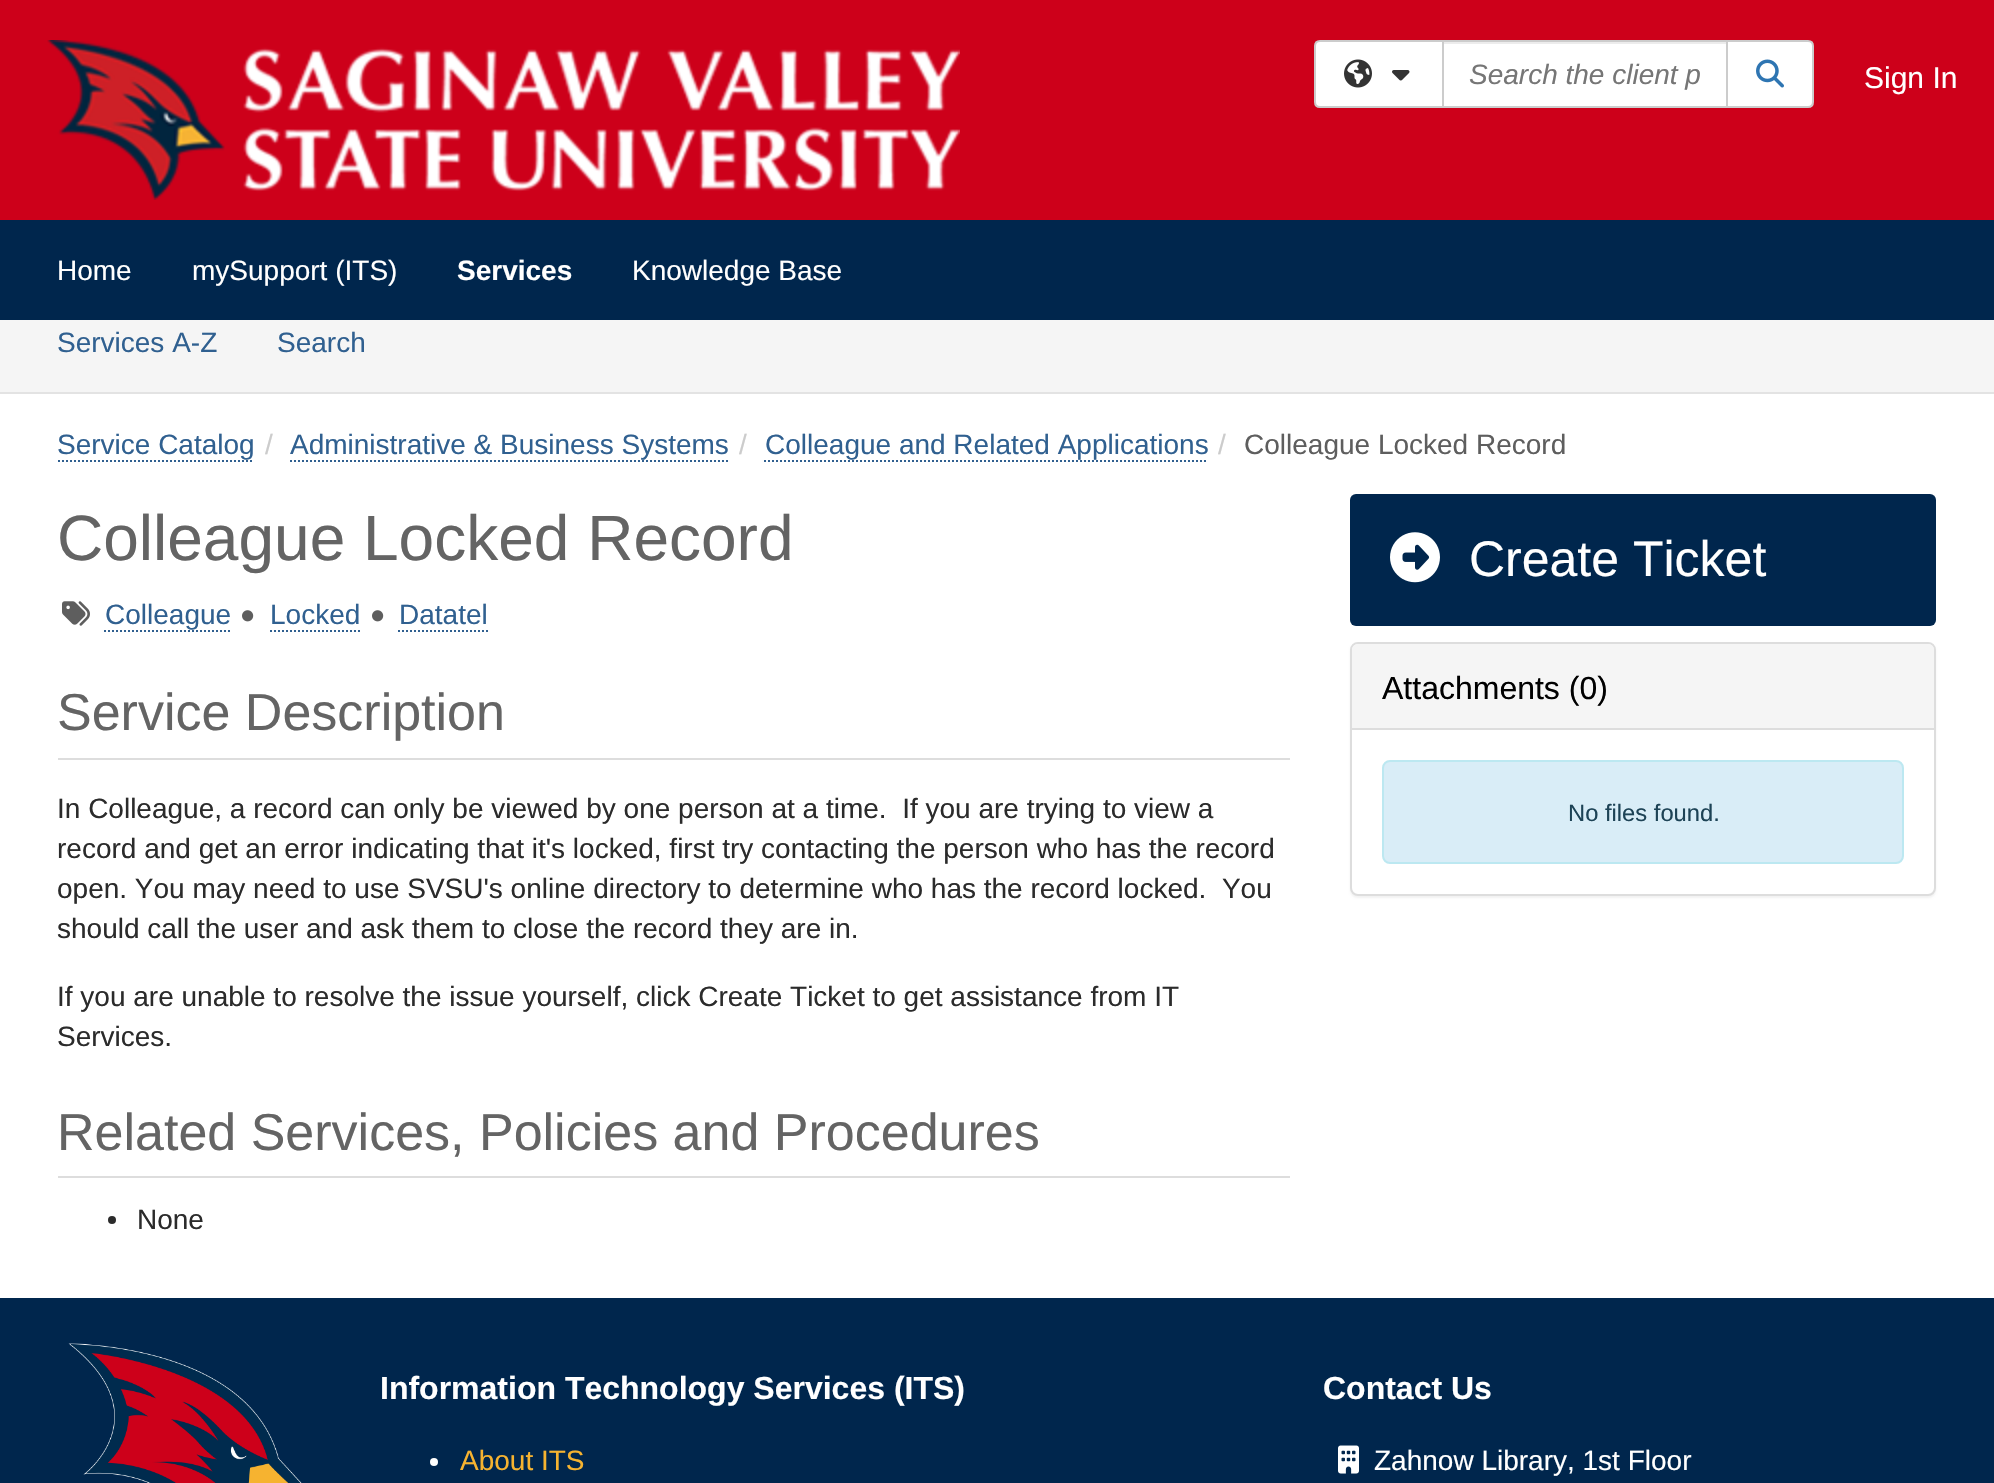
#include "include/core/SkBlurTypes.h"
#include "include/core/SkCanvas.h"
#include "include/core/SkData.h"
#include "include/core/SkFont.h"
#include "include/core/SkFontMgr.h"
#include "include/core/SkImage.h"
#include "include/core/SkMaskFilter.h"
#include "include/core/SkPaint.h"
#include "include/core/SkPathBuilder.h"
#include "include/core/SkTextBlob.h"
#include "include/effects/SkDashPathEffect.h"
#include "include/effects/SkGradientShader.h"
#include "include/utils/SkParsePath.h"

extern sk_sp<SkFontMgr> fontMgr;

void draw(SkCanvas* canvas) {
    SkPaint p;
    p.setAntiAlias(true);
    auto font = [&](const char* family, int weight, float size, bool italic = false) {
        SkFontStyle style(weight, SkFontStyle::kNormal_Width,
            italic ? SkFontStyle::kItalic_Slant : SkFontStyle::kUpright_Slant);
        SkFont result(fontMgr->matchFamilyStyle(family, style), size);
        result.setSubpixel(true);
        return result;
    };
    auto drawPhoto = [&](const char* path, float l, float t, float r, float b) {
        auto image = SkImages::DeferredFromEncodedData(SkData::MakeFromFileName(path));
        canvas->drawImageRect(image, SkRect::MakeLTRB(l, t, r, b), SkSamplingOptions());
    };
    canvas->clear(0xFFFFFFFF);
    p.setColor(0xFFCD001A);
    canvas->drawRect(SkRect::MakeLTRB(0, 0, 1994, 220), p);
    drawPhoto("media/1.png", 47, 40, 960, 200);
    p.setColor(0xFFFFFFFF);
    canvas->drawPath(SkPathBuilder().moveTo(1320, 41).lineTo(1443, 41).lineTo(1443, 107).lineTo(1320, 107).cubicTo(1317, 107, 1315, 105, 1315, 102).lineTo(1315, 46).cubicTo(1315, 43, 1317, 41, 1320, 41).close().detach(), p);
    p.setStyle(SkPaint::kStroke_Style);
    p.setStrokeWidth(2);
    p.setColor(0xFFCCCCCC);
    canvas->drawPath(SkPathBuilder().moveTo(1320, 41).lineTo(1443, 41).lineTo(1443, 107).lineTo(1320, 107).cubicTo(1317, 107, 1315, 105, 1315, 102).lineTo(1315, 46).cubicTo(1315, 43, 1317, 41, 1320, 41).close().detach(), p);
    drawPhoto("media/2.png", 1344, 59, 1372, 88);
    drawPhoto("media/3.png", 1392, 70, 1410, 81);
    p.setStyle(SkPaint::kFill_Style);
    p.setColor(0xFFFFFFFF);
    canvas->drawRect(SkRect::MakeLTRB(1444, 44, 1726, 106), p);
    p.setColor(0xFFECECEC);
    canvas->drawRect(SkRect::MakeLTRB(1444, 42, 1726, 44), p);
    p.setStyle(SkPaint::kStroke_Style);
    p.setColor(0xFFCCCCCC);
    canvas->drawRect(SkRect::MakeLTRB(1443, 41, 1727, 107), p);
    auto font1 = font("Liberation Sans", 400, 28, true);
    p.setStyle(SkPaint::kFill_Style);
    p.setColor(0xFF767676);
    canvas->drawString("Search the client p", 1469, 84, font1, p);
    p.setColor(0xFFFFFFFF);
    canvas->drawPath(SkPathBuilder().moveTo(1727, 41).lineTo(1808, 41).cubicTo(1811, 41, 1813, 43, 1813, 46).lineTo(1813, 102).cubicTo(1813, 105, 1811, 107, 1808, 107).lineTo(1727, 107).close().detach(), p);
    p.setStyle(SkPaint::kStroke_Style);
    p.setColor(0xFFCCCCCC);
    canvas->drawPath(SkPathBuilder().moveTo(1727, 41).lineTo(1808, 41).cubicTo(1811, 41, 1813, 43, 1813, 46).lineTo(1813, 102).cubicTo(1813, 105, 1811, 107, 1808, 107).lineTo(1727, 107).close().detach(), p);
    drawPhoto("media/4.png", 1756, 59, 1784, 88);
    auto font2 = font("Liberation Sans", 400, 30);
    p.setStyle(SkPaint::kFill_Style);
    p.setColor(0xFFFFFFFF);
    canvas->drawString("Sign In", 1864, 88, font2, p);
    p.setColor(0xFF00264D);
    canvas->drawRect(SkRect::MakeLTRB(0, 220, 1994, 320), p);
    auto font3 = font("Liberation Sans", 400, 28);
    p.setColor(0xFFFFFFFF);
    canvas->drawString("Home", 57, 280, font3, p);
    canvas->drawString("mySupport (ITS)", 192, 280, font3, p);
    auto font4 = font("Liberation Sans", 700, 28);
    canvas->drawString("Services", 457, 280, font4, p);
    canvas->drawString("Knowledge Base", 632, 280, font3, p);
    p.setColor(0xFFF5F5F5);
    canvas->drawRect(SkRect::MakeLTRB(0, 320, 1994, 392), p);
    p.setColor(0xFFE3E3E3);
    canvas->drawRect(SkRect::MakeLTRB(0, 392, 1994, 394), p);
    p.setColor(0xFF306090);
    {
        const struct { const char* s; float x, y; } items[] = {
            {"Services A-Z", 57, 352},
            {"Search", 277, 352},
            {"Service Catalog", 57, 454},
        };
        for (auto [s, x, y] : items) {
            canvas->drawString(s, x, y, font3, p);
        }
    }
    p.setStyle(SkPaint::kStroke_Style);
    p.setPathEffect(SkDashPathEffect::Make({{2, 2}}, 0));
    canvas->drawPath(SkPathBuilder().moveTo(58, 461).lineTo(254, 461).detach(), p);
    p.setPathEffect(nullptr);
    p.setStyle(SkPaint::kFill_Style);
    p.setColor(0xFFCCCCCC);
    canvas->drawString("/", 265, 454, font3, p);
    p.setColor(0xFF306090);
    canvas->drawString("Administrative & Business Systems", 290, 454, font3, p);
    p.setStyle(SkPaint::kStroke_Style);
    p.setPathEffect(SkDashPathEffect::Make({{2, 2}}, 0));
    canvas->drawPath(SkPathBuilder().moveTo(290, 461).lineTo(730, 461).detach(), p);
    p.setPathEffect(nullptr);
    p.setStyle(SkPaint::kFill_Style);
    p.setColor(0xFFCCCCCC);
    canvas->drawString("/", 739, 454, font3, p);
    p.setColor(0xFF306090);
    canvas->drawString("Colleague and Related Applications", 765, 454, font3, p);
    p.setStyle(SkPaint::kStroke_Style);
    p.setPathEffect(SkDashPathEffect::Make({{2, 2}}, 0));
    canvas->drawPath(SkPathBuilder().moveTo(764, 461).lineTo(1208, 461).detach(), p);
    p.setPathEffect(nullptr);
    p.setStyle(SkPaint::kFill_Style);
    p.setColor(0xFFCCCCCC);
    canvas->drawString("/", 1218, 454, font3, p);
    p.setColor(0xFF5E5E5E);
    canvas->drawString("Colleague Locked Record", 1244, 454, font3, p);
    auto font5 = font("Liberation Sans", 400, 64);
    p.setColor(0xFF646464);
    canvas->drawString("Colleague Locked Record", 57, 560, font5, p);
    drawPhoto("media/5.png", 62, 601, 90, 626);
    p.setColor(0xFF306090);
    canvas->drawString("Colleague", 105, 624, font3, p);
    p.setStyle(SkPaint::kStroke_Style);
    p.setPathEffect(SkDashPathEffect::Make({{2, 2}}, 0));
    canvas->drawPath(SkPathBuilder().moveTo(104, 631).lineTo(230, 631).detach(), p);
    p.setPathEffect(nullptr);
    drawPhoto("media/6.png", 242, 610, 254, 622);
    p.setStyle(SkPaint::kFill_Style);
    canvas->drawString("Locked", 270, 624, font3, p);
    p.setStyle(SkPaint::kStroke_Style);
    p.setPathEffect(SkDashPathEffect::Make({{2, 2}}, 0));
    canvas->drawPath(SkPathBuilder().moveTo(270, 631).lineTo(360, 631).detach(), p);
    p.setPathEffect(nullptr);
    drawPhoto("media/6.png", 372, 610, 384, 622);
    p.setStyle(SkPaint::kFill_Style);
    canvas->drawString("Datatel", 399, 624, font3, p);
    p.setStyle(SkPaint::kStroke_Style);
    p.setPathEffect(SkDashPathEffect::Make({{2, 2}}, 0));
    canvas->drawPath(SkPathBuilder().moveTo(398, 631).lineTo(488, 631).detach(), p);
    p.setPathEffect(nullptr);
    p.setStyle(SkPaint::kFill_Style);
    p.setColor(0xFFDDDDDD);
    canvas->drawRect(SkRect::MakeLTRB(58, 758, 1290, 760), p);
    auto font6 = font("Liberation Sans", 400, 52);
    p.setColor(0xFF646464);
    canvas->drawString("Service Description", 57, 730, font6, p);
    p.setColor(0xFF2B2B2B);
    {
        const struct { const char* s; float x, y; } items[] = {
            {"In Colleague, a record can only be viewed by one person at a time.  If you are trying to view a", 57, 818},
            {"record and get an error indicating that it's locked, first try contacting the person who has the record", 57, 858},
            {"open. You may need to use SVSU's online directory to determine who has the record locked.  You", 57, 898},
            {"should call the user and ask them to close the record they are in.", 57, 938},
            {"If you are unable to resolve the issue yourself, click Create Ticket to get assistance from IT", 57, 1006},
            {"Services.", 57, 1046},
        };
        for (auto [s, x, y] : items) {
            canvas->drawString(s, x, y, font3, p);
        }
    }
    p.setColor(0xFFDDDDDD);
    canvas->drawRect(SkRect::MakeLTRB(58, 1176, 1290, 1178), p);
    p.setColor(0xFF646464);
    canvas->drawString("Related Services, Policies and Procedures", 57, 1150, font6, p);
    p.setColor(0xFF2B2B2B);
    canvas->drawCircle(112, 1220, 4, p);
    canvas->drawString("None", 137, 1229, font3, p);
    p.setColor(0xFF00264D);
    canvas->drawRoundRect(SkRect::MakeLTRB(1350, 494, 1936, 626), 6, 6, p);
    drawPhoto("media/7.png", 1390, 532, 1440, 583);
    auto font7 = font("Liberation Sans", 400, 50);
    p.setColor(0xFFFFFFFF);
    canvas->drawString("Create Ticket", 1469, 576, font7, p);
    p.setColor(0x0D000000);
    p.setMaskFilter(SkMaskFilter::MakeBlur(kNormal_SkBlurStyle, 1));
    canvas->drawRoundRect(SkRect::MakeLTRB(1350, 644, 1936, 898), 8, 8, p);
    p.setMaskFilter(nullptr);
    p.setColor(0xFFFFFFFF);
    canvas->drawRoundRect(SkRect::MakeLTRB(1351, 643, 1935, 895), 7, 7, p);
    p.setStyle(SkPaint::kStroke_Style);
    p.setColor(0xFFDDDDDD);
    canvas->drawRoundRect(SkRect::MakeLTRB(1351, 643, 1935, 895), 7, 7, p);
    p.setStyle(SkPaint::kFill_Style);
    p.setColor(0xFFF5F5F5);
    canvas->drawPath(SkPathBuilder().moveTo(1358, 644).lineTo(1928, 644).cubicTo(1931.5f, 644, 1934, 646.5f, 1934, 650).lineTo(1934, 730).lineTo(1352, 730).lineTo(1352, 650).cubicTo(1352, 646.5f, 1354.5f, 644, 1358, 644).close().detach(), p);
    p.setColor(0xFFDDDDDD);
    canvas->drawRect(SkRect::MakeLTRB(1352, 728, 1934, 730), p);
    auto font8 = font("Liberation Sans", 400, 32);
    p.setColor(0xFF000000);
    canvas->drawString("Attachments (0)", 1382, 699, font8, p);
    p.setColor(0xFFD9EDF7);
    canvas->drawRoundRect(SkRect::MakeLTRB(1383, 761, 1903, 863), 7, 7, p);
    p.setStyle(SkPaint::kStroke_Style);
    p.setColor(0xFFBCE8F1);
    canvas->drawRoundRect(SkRect::MakeLTRB(1383, 761, 1903, 863), 7, 7, p);
    auto font9 = font("Liberation Sans", 400, 23.75f);
    p.setStyle(SkPaint::kFill_Style);
    p.setColor(0xFF1D4356);
    canvas->drawString("No files found.", 1568, 821, font9, p);
    p.setColor(0xFF00264D);
    canvas->drawRect(SkRect::MakeLTRB(0, 1298, 1994, 1483), p);
    drawPhoto("media/8.png", 68, 1343, 302, 1483);
    auto font10 = font("Liberation Sans", 700, 32);
    p.setColor(0xFFFFFFFF);
    canvas->drawString("Information Technology Services (ITS)", 380, 1399, font10, p);
    canvas->drawCircle(434, 1462, 4, p);
    p.setColor(0xFFF6B330);
    canvas->drawString("About ITS", 460, 1470, font3, p);
    p.setColor(0xFFFFFFFF);
    canvas->drawString("Contact Us", 1323, 1399, font10, p);
    drawPhoto("media/9.png", 1338, 1445, 1359, 1474);
    canvas->drawString("Zahnow Library, 1st Floor", 1374, 1470, font3, p);
}
